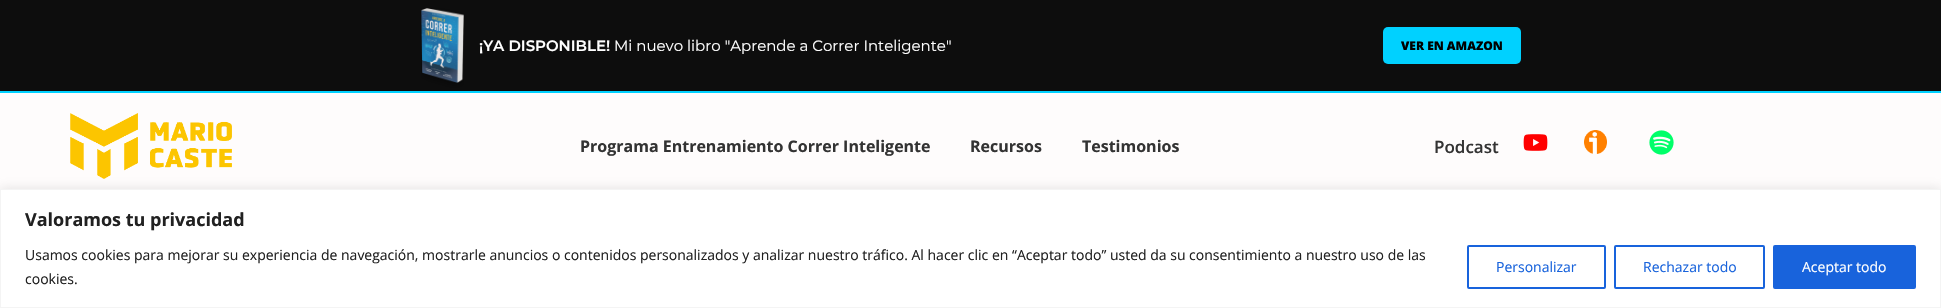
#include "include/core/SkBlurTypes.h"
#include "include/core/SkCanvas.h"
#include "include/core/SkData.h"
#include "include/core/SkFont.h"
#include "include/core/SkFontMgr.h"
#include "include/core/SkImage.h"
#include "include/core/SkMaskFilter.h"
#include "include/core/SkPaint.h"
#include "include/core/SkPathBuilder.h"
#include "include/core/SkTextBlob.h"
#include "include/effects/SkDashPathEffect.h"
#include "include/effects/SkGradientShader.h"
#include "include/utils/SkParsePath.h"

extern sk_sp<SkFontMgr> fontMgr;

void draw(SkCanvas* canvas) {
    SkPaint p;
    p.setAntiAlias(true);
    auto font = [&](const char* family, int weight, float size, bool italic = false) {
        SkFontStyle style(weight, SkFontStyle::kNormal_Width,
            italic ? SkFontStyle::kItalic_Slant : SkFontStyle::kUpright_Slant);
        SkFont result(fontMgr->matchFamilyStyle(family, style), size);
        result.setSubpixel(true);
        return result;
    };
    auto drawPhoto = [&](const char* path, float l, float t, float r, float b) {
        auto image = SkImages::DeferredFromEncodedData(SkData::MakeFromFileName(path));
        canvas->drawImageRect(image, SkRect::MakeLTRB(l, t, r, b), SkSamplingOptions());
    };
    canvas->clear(0xFFFEFCFC);
    p.setColor(0xFF0D0D0D);
    canvas->drawRect(SkRect::MakeLTRB(0, 0, 1941, 91), p);
    p.setColor(0xFF00D1FF);
    canvas->drawRect(SkRect::MakeLTRB(0, 91, 1941, 93), p);
    drawPhoto("media/1.png", 421, 8, 464, 91);
    auto font1 = font("Montserrat", 600, 15);
    p.setColor(0xFFFFFFFF);
    canvas->drawString("¡YA DISPONIBLE!", 479, 51, font1, p);
    auto font2 = font("Montserrat", 400, 15);
    canvas->drawString("Mi nuevo libro \"Aprende a Correr Inteligente\"", 614, 51, font2, p);
    p.setColor(0xFF00D1FF);
    canvas->drawRoundRect(SkRect::MakeLTRB(1383, 27, 1521, 64), 5, 5, p);
    auto font3 = font("Open Sans", 800, 12);
    p.setColor(0xFF000000);
    canvas->drawString("VER EN AMAZON", 1401, 50, font3, p);
    drawPhoto("media/2.png", 70, 113, 232, 179);
    auto font4 = font("Open Sans", 700, 16);
    p.setColor(0xFF333333);
    {
        const struct { const char* s; float x, y; } items[] = {
            {"Programa Entrenamiento Correr Inteligente", 580, 152},
            {"Recursos", 970, 152},
            {"Testimonios", 1082, 152},
        };
        for (auto [s, x, y] : items) {
            canvas->drawString(s, x, y, font4, p);
        }
    }
    auto font5 = font("Open Sans", 600, 17);
    canvas->drawString("Podcast", 1434, 153, font5, p);
    drawPhoto("media/3.png", 1523, 134, 1548, 151);
    drawPhoto("media/4.png", 1584, 130, 1607, 154);
    drawPhoto("media/5.png", 1649, 130, 1674, 155);
    p.setColor(0x4DACABAB);
    p.setMaskFilter(SkMaskFilter::MakeBlur(kNormal_SkBlurStyle, 5));
    canvas->drawRect(SkRect::MakeLTRB(0, 188, 1941, 307), p);
    p.setMaskFilter(nullptr);
    p.setColor(0xFFFFFFFF);
    canvas->drawRect(SkRect::MakeLTRB(0.5f, 189.5f, 1940.5f, 307.5f), p);
    p.setStyle(SkPaint::kStroke_Style);
    p.setStrokeWidth(1);
    p.setColor(0xFFF4F4F4);
    canvas->drawRect(SkRect::MakeLTRB(0.5f, 189.5f, 1940.5f, 307.5f), p);
    auto font6 = font("Open Sans", 700, 18);
    p.setStyle(SkPaint::kFill_Style);
    p.setColor(0xFF212121);
    canvas->drawString("Valoramos tu privacidad", 25, 226, font6, p);
    auto font7 = font("Open Sans", 400, 14);
    canvas->drawString("Usamos cookies para mejorar su experiencia de navegación, mostrarle anuncios o contenidos personalizados y analizar nuestro tráfico. Al hacer clic en “Aceptar todo” usted da su consentimiento a nuestro uso de las", 25, 260, font7, p);
    canvas->drawString("cookies.", 25, 284, font7, p);
    p.setStyle(SkPaint::kStroke_Style);
    p.setStrokeWidth(2);
    p.setColor(0xFF1863DC);
    canvas->drawRoundRect(SkRect::MakeLTRB(1468, 246, 1605, 288), 1, 1, p);
    p.setStyle(SkPaint::kFill_Style);
    canvas->drawString("Personalizar", 1496, 272, font7, p);
    p.setStyle(SkPaint::kStroke_Style);
    canvas->drawRoundRect(SkRect::MakeLTRB(1615, 246, 1764, 288), 1, 1, p);
    p.setStyle(SkPaint::kFill_Style);
    canvas->drawString("Rechazar todo", 1643, 272, font7, p);
    canvas->drawRoundRect(SkRect::MakeLTRB(1774, 246, 1915, 288), 1, 1, p);
    p.setStyle(SkPaint::kStroke_Style);
    canvas->drawRoundRect(SkRect::MakeLTRB(1774, 246, 1915, 288), 1, 1, p);
    p.setStyle(SkPaint::kFill_Style);
    p.setColor(0xFFFFFFFF);
    canvas->drawString("Aceptar todo", 1802, 272, font7, p);
}
